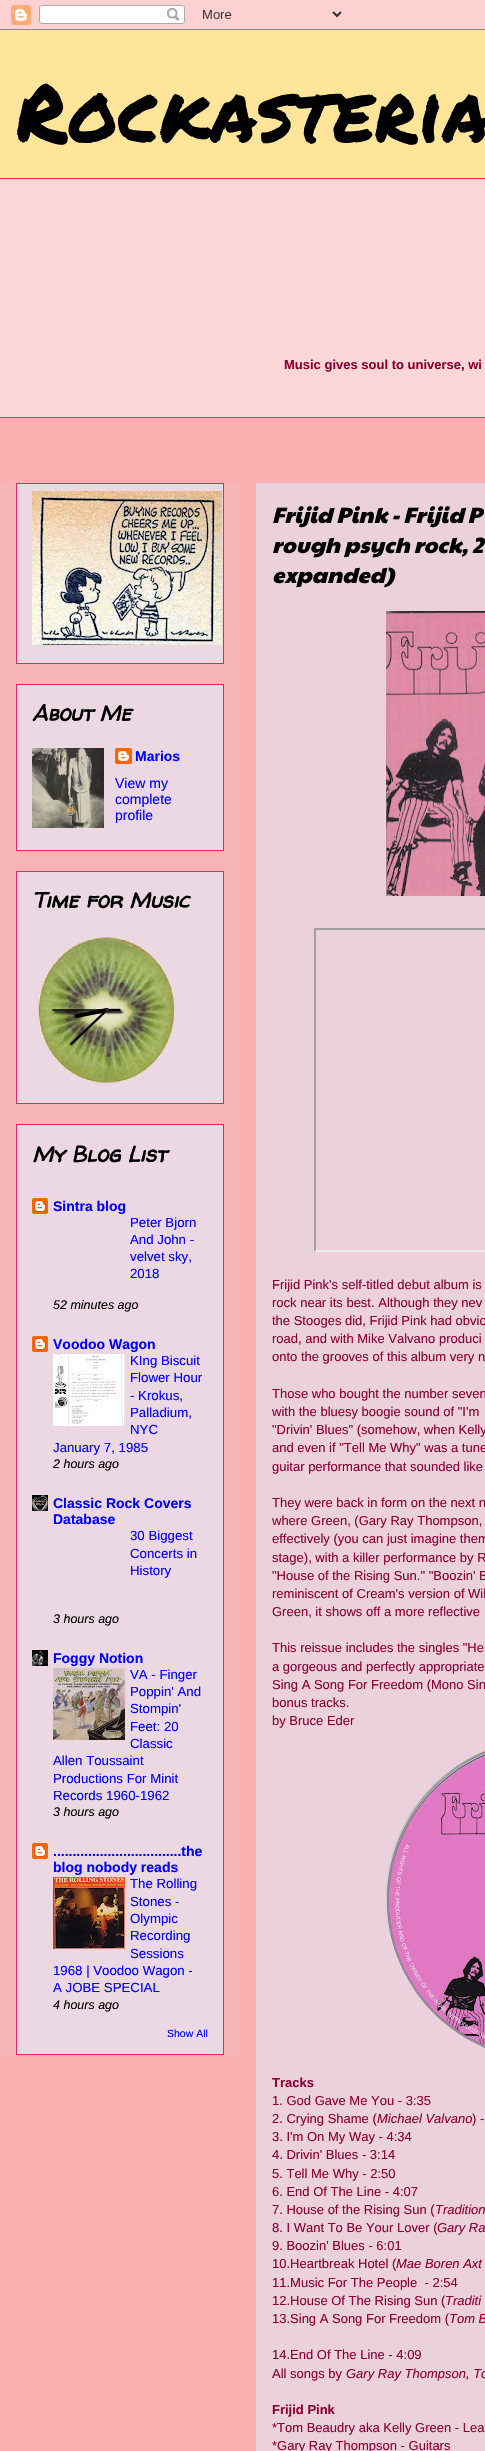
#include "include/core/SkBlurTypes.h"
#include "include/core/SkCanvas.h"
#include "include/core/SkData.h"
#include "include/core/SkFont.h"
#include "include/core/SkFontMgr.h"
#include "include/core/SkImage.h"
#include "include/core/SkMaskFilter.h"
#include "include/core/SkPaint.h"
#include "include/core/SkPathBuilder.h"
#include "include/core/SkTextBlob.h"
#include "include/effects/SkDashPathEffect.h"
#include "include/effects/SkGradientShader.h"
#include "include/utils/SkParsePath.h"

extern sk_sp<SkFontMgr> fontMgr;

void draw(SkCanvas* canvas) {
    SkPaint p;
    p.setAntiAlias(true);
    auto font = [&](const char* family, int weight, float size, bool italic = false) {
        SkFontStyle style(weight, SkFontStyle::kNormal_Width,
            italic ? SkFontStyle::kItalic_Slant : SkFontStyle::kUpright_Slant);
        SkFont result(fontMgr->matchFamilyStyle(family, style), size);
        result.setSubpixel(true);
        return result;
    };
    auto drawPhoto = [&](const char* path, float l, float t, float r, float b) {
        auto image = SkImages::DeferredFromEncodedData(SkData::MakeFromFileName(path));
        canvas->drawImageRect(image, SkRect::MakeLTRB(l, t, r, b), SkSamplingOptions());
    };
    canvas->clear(0xFFFBB1B2);
    drawPhoto("media/1.png", 0, 0, 485, 30);
    p.setColor(0xFFFFE599);
    canvas->drawRect(SkRect::MakeLTRB(0, 30, 485, 178), p);
    auto font1 = font("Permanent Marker", 400, 80);
    p.setColor(0xFF000000);
    canvas->drawString("Rockasteria", 16, 142, font1, p);
    p.setColor(0xFFFDD7D8);
    canvas->drawRect(SkRect::MakeLTRB(0, 179, 485, 417), p);
    p.setColor(0xFFDE2B5B);
    canvas->drawRect(SkRect::MakeLTRB(0, 178, 485, 179), p);
    auto font2 = font("Liberation Sans", 700, 13);
    p.setColor(0xFF8D0034);
    canvas->drawString("Music gives soul to universe, wi", 284, 369, font2, p);
    p.setColor(0xFFDE2B5B);
    canvas->drawRect(SkRect::MakeLTRB(0, 417, 485, 418), p);
    p.setColor(0xFFF6B6B6);
    canvas->drawRect(SkRect::MakeLTRB(0, 483, 240, 2055), p);
    p.setColor(0xFFEBD8E2);
    canvas->drawRect(SkRect::MakeLTRB(16.5f, 483.5f, 223.5f, 663.5f), p);
    p.setStyle(SkPaint::kStroke_Style);
    p.setStrokeWidth(1);
    p.setColor(0xFFDE2B5B);
    canvas->drawRect(SkRect::MakeLTRB(16.5f, 483.5f, 223.5f, 663.5f), p);
    drawPhoto("media/2.png", 32, 491, 222, 645);
    p.setStyle(SkPaint::kFill_Style);
    p.setColor(0xFFEBD8E2);
    canvas->drawRect(SkRect::MakeLTRB(16.5f, 684.5f, 223.5f, 850.5f), p);
    p.setStyle(SkPaint::kStroke_Style);
    p.setColor(0xFFDE2B5B);
    canvas->drawRect(SkRect::MakeLTRB(16.5f, 684.5f, 223.5f, 850.5f), p);
    auto font3 = font("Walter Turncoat", 700, 22, true);
    p.setStyle(SkPaint::kFill_Style);
    p.setColor(0xFF000000);
    canvas->drawString("About Me", 32, 721, font3, p);
    drawPhoto("media/3.png", 32, 748, 104, 828);
    drawPhoto("media/4.png", 115, 748, 132, 764);
    auto font4 = font("Liberation Sans", 700, 14);
    p.setColor(0xFF0000FF);
    canvas->drawString("Marios", 135, 761, font4, p);
    auto font5 = font("Liberation Sans", 400, 14);
    {
        const struct { const char* s; float x, y; } items[] = {
            {"View my", 115, 788},
            {"complete", 115, 804},
            {"profile", 115, 820},
        };
        for (auto [s, x, y] : items) {
            canvas->drawString(s, x, y, font5, p);
        }
    }
    p.setColor(0xFFEBD8E2);
    canvas->drawRect(SkRect::MakeLTRB(16.5f, 871.5f, 223.5f, 1103.5f), p);
    p.setStyle(SkPaint::kStroke_Style);
    p.setColor(0xFFDE2B5B);
    canvas->drawRect(SkRect::MakeLTRB(16.5f, 871.5f, 223.5f, 1103.5f), p);
    p.setStyle(SkPaint::kFill_Style);
    p.setColor(0xFF000000);
    canvas->drawString("Time for Music", 32, 908, font3, p);
    drawPhoto("media/5.png", 38, 937, 174, 1083);
    p.setColor(0xFFEBD8E2);
    canvas->drawRect(SkRect::MakeLTRB(16.5f, 1124.5f, 223.5f, 2054.5f), p);
    p.setStyle(SkPaint::kStroke_Style);
    p.setColor(0xFFDE2B5B);
    canvas->drawRect(SkRect::MakeLTRB(16.5f, 1124.5f, 223.5f, 2054.5f), p);
    p.setStyle(SkPaint::kFill_Style);
    p.setColor(0xFF000000);
    canvas->drawString("My Blog List", 32, 1162, font3, p);
    drawPhoto("media/6.png", 32, 1198, 48, 1214);
    p.setColor(0xFF0000FF);
    canvas->drawString("Sintra blog", 53, 1211, font4, p);
    auto font6 = font("Liberation Sans", 400, 13.25f);
    {
        const struct { const char* s; float x, y; } items[] = {
            {"Peter Bjorn", 130, 1227},
            {"And John -", 130, 1244},
            {"velvet sky,", 130, 1261},
            {"2018", 130, 1278},
        };
        for (auto [s, x, y] : items) {
            canvas->drawString(s, x, y, font6, p);
        }
    }
    auto font7 = font("Liberation Sans", 400, 12.5f, true);
    p.setColor(0xFF000000);
    canvas->drawString("52 minutes ago", 53, 1309, font7, p);
    drawPhoto("media/6.png", 32, 1336, 48, 1352);
    p.setColor(0xFF0000FF);
    canvas->drawString("Voodoo Wagon", 53, 1349, font4, p);
    drawPhoto("media/7.png", 53, 1354, 125, 1426);
    {
        const struct { const char* s; float x, y; } items[] = {
            {"KIng Biscuit", 130, 1365},
            {"Flower Hour", 130, 1382},
            {"- Krokus,", 130, 1400},
            {"Palladium,", 130, 1417},
            {"NYC", 130, 1434},
            {"January 7, 1985", 53, 1452},
        };
        for (auto [s, x, y] : items) {
            canvas->drawString(s, x, y, font6, p);
        }
    }
    p.setColor(0xFF000000);
    canvas->drawString("2 hours ago", 53, 1468, font7, p);
    drawPhoto("media/8.png", 32, 1495, 48, 1511);
    p.setColor(0xFF0000FF);
    canvas->drawString("Classic Rock Covers", 53, 1508, font4, p);
    canvas->drawString("Database", 53, 1524, font4, p);
    {
        const struct { const char* s; float x, y; } items[] = {
            {"30 Biggest", 130, 1540},
            {"Concerts in", 130, 1558},
            {"History", 130, 1575},
        };
        for (auto [s, x, y] : items) {
            canvas->drawString(s, x, y, font6, p);
        }
    }
    p.setColor(0xFF000000);
    canvas->drawString("3 hours ago", 53, 1623, font7, p);
    drawPhoto("media/9.png", 32, 1650, 48, 1666);
    p.setColor(0xFF0000FF);
    canvas->drawString("Foggy Notion", 53, 1663, font4, p);
    drawPhoto("media/10.png", 53, 1668, 125, 1740);
    {
        const struct { const char* s; float x, y; } items[] = {
            {"VA - Finger", 130, 1679},
            {"Poppin' And", 130, 1696},
            {"Stompin'", 130, 1713},
            {"Feet: 20", 130, 1731},
            {"Classic", 130, 1748},
            {"Allen Toussaint", 53, 1765},
            {"Productions For Minit", 53, 1783},
            {"Records 1960-1962", 53, 1800},
        };
        for (auto [s, x, y] : items) {
            canvas->drawString(s, x, y, font6, p);
        }
    }
    p.setColor(0xFF000000);
    canvas->drawString("3 hours ago", 53, 1816, font7, p);
    drawPhoto("media/6.png", 32, 1843, 48, 1859);
    p.setColor(0xFF0000FF);
    canvas->drawString(".................................the", 53, 1856, font4, p);
    canvas->drawString("blog nobody reads", 53, 1872, font4, p);
    drawPhoto("media/11.png", 53, 1877, 125, 1949);
    {
        const struct { const char* s; float x, y; } items[] = {
            {"The Rolling", 130, 1888},
            {"Stones -", 130, 1906},
            {"Olympic", 130, 1923},
            {"Recording", 130, 1940},
            {"Sessions", 130, 1958},
            {"1968 | Voodoo Wagon -", 53, 1975},
            {"A JOBE SPECIAL", 53, 1992},
        };
        for (auto [s, x, y] : items) {
            canvas->drawString(s, x, y, font6, p);
        }
    }
    p.setColor(0xFF000000);
    canvas->drawString("4 hours ago", 53, 2009, font7, p);
    auto font8 = font("Liberation Sans", 400, 10.5f);
    p.setColor(0xFF0000FF);
    canvas->drawString("Show All", 167, 2037, font8, p);
    p.setColor(0xFFEAD1DC);
    canvas->drawRect(SkRect::MakeLTRB(256, 483, 485, 2451), p);
    auto font9 = font("Paytone One", 400, 22, true);
    p.setColor(0xFF000000);
    {
        const struct { const char* s; float x, y; } items[] = {
            {"Frijid Pink - Frijid P", 272, 523},
            {"rough psych rock, 2", 272, 553},
            {"expanded)", 272, 583},
        };
        for (auto [s, x, y] : items) {
            canvas->drawString(s, x, y, font9, p);
        }
    }
    drawPhoto("media/12.png", 386, 611, 485, 896);
    p.setColor(0xFF9F9F9F);
    canvas->drawPath(SkPathBuilder().moveTo(314, 928).lineTo(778, 928).lineTo(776, 930).lineTo(316, 930).close().detach(), p);
    p.setColor(0xFFEEEEEE);
    canvas->drawPath(SkPathBuilder().moveTo(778, 1252).lineTo(314, 1252).lineTo(316, 1250).lineTo(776, 1250).close().detach(), p);
    p.setColor(0xFF9F9F9F);
    canvas->drawPath(SkPathBuilder().moveTo(314, 1252).lineTo(314, 928).lineTo(316, 930).lineTo(316, 1250).close().detach(), p);
    auto font10 = font("Liberation Sans", 400, 13);
    p.setColor(0xFF8D0034);
    {
        const struct { const char* s; float x, y; } items[] = {
            {"Frijid Pink's self-titled debut album is", 272, 1289},
            {"rock near its best. Although they nev", 272, 1307},
            {"the Stooges did, Frijid Pink had obvio", 272, 1325},
            {"road, and with Mike Valvano produci", 272, 1343},
            {"onto the grooves of this album very n", 272, 1361},
            {"Those who bought the number seven", 272, 1398},
            {"with the bluesy boogie sound of \"I'm", 272, 1416},
            {"\"Drivin' Blues\" (somehow, when Kelly", 272, 1434},
            {"and even if \"Tell Me Why\" was a tune", 272, 1452},
            {"guitar performance that sounded like", 272, 1471},
            {"They were back in form on the next n", 272, 1507},
            {"where Green, (Gary Ray Thompson,", 272, 1525},
            {"effectively (you can just imagine them", 272, 1543},
            {"stage), with a killer performance by R", 272, 1562},
            {"\"House of the Rising Sun.\" \"Boozin' B", 272, 1580},
            {"reminiscent of Cream's version of Wil", 272, 1598},
            {"Green, it shows off a more reflective", 272, 1616},
            {"This reissue includes the singles \"He", 272, 1652},
            {"a gorgeous and perfectly appropriate", 272, 1671},
            {"Sing A Song For Freedom (Mono Sin", 272, 1689},
            {"bonus tracks.", 272, 1707},
            {"by Bruce Eder", 272, 1725},
        };
        for (auto [s, x, y] : items) {
            canvas->drawString(s, x, y, font10, p);
        }
    }
    drawPhoto("media/13.png", 386, 1747, 485, 2051);
    canvas->drawString("Tracks", 272, 2087, font2, p);
    canvas->drawString("1. God Gave Me You - 3:35", 272, 2105, font10, p);
    canvas->drawString("2. Crying Shame (", 272, 2123, font10, p);
    auto font11 = font("Liberation Sans", 400, 13, true);
    canvas->drawString("Michael Valvano", 377, 2123, font11, p);
    {
        const struct { const char* s; float x, y; } items[] = {
            {") -", 472, 2123},
            {"3. I'm On My Way - 4:34", 272, 2141},
            {"4. Drivin' Blues - 3:14", 272, 2159},
            {"5. Tell Me Why - 2:50", 272, 2178},
            {"6. End Of The Line - 4:07", 272, 2196},
            {"7. House of the Rising Sun (", 272, 2214},
        };
        for (auto [s, x, y] : items) {
            canvas->drawString(s, x, y, font10, p);
        }
    }
    canvas->drawString("Tradition", 435, 2214, font11, p);
    canvas->drawString("8. I Want To Be Your Lover (", 272, 2232, font10, p);
    canvas->drawString("Gary Ra", 437, 2232, font11, p);
    canvas->drawString("9. Boozin' Blues - 6:01", 272, 2250, font10, p);
    canvas->drawString("10.Heartbreak Hotel (", 272, 2268, font10, p);
    canvas->drawString("Mae Boren Axt", 396, 2268, font11, p);
    canvas->drawString("11.Music For The People  - 2:54", 272, 2287, font10, p);
    canvas->drawString("12.House Of The Rising Sun (", 272, 2305, font10, p);
    canvas->drawString("Traditi", 445, 2305, font11, p);
    canvas->drawString("13.Sing A Song For Freedom (", 272, 2323, font10, p);
    canvas->drawString("Tom B", 449, 2323, font11, p);
    canvas->drawString("14.End Of The Line - 4:09", 272, 2359, font10, p);
    canvas->drawString("All songs by", 272, 2378, font10, p);
    canvas->drawString("Gary Ray Thompson, To", 346, 2378, font11, p);
    canvas->drawString("Frijid Pink", 272, 2414, font2, p);
    canvas->drawString("*Tom Beaudry aka Kelly Green - Lea", 272, 2432, font10, p);
    canvas->drawString("*Gary Ray Thompson - Guitars", 272, 2450, font10, p);
}
